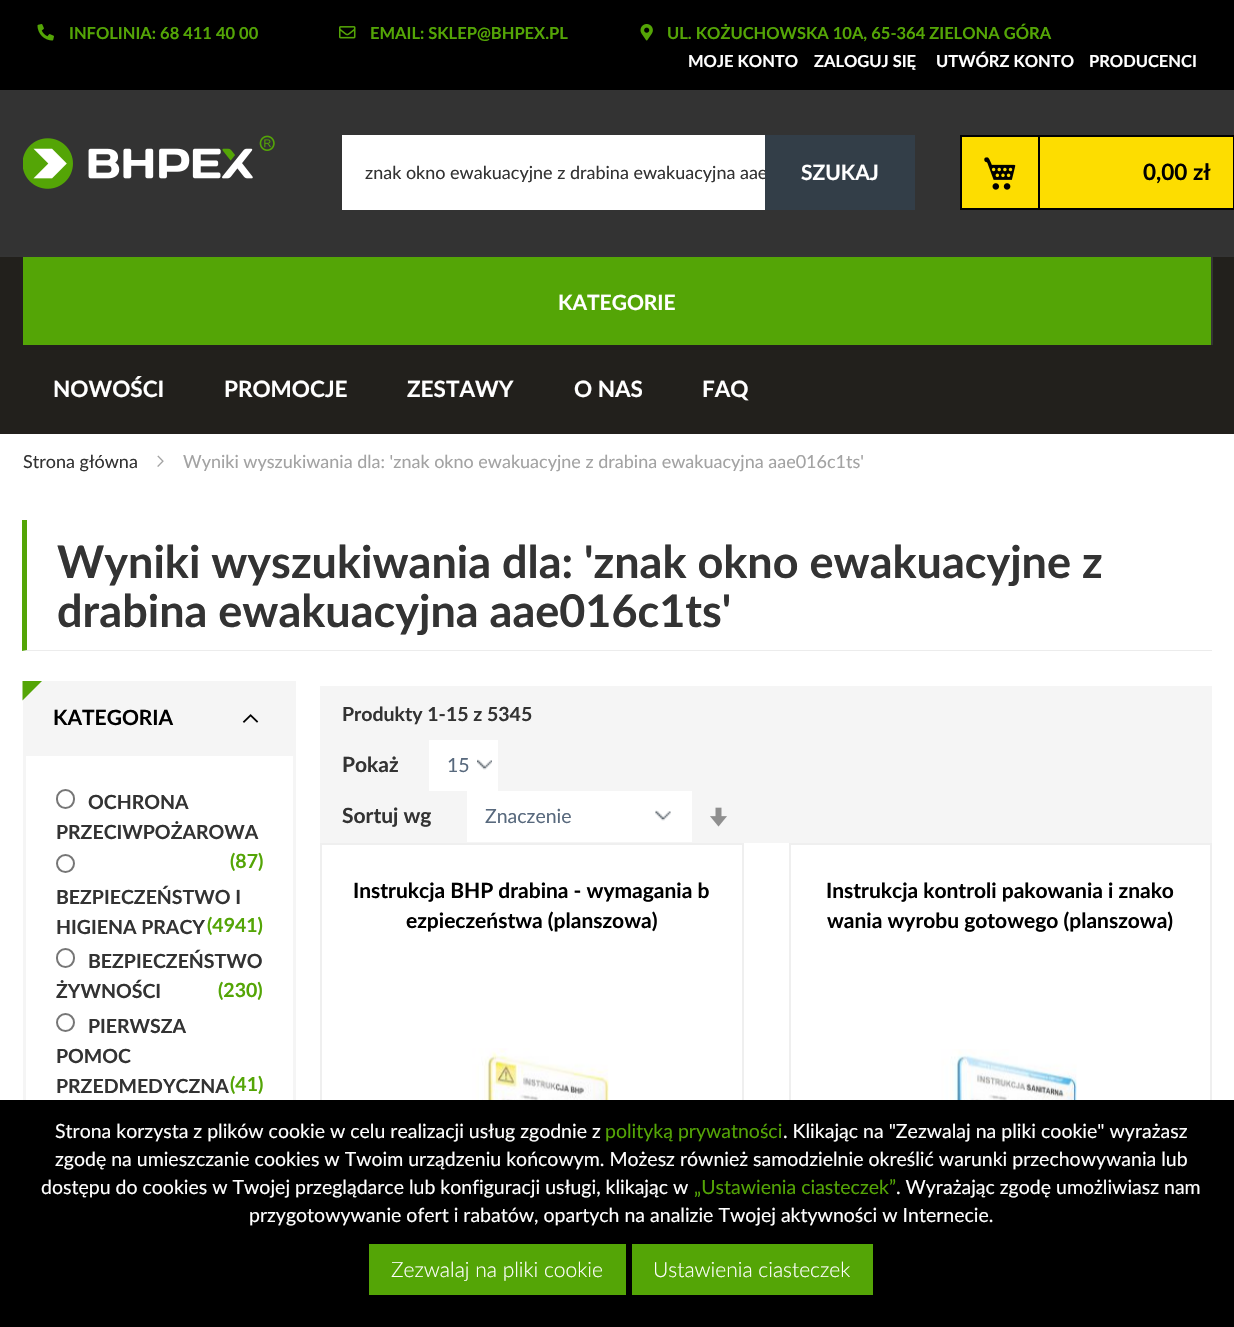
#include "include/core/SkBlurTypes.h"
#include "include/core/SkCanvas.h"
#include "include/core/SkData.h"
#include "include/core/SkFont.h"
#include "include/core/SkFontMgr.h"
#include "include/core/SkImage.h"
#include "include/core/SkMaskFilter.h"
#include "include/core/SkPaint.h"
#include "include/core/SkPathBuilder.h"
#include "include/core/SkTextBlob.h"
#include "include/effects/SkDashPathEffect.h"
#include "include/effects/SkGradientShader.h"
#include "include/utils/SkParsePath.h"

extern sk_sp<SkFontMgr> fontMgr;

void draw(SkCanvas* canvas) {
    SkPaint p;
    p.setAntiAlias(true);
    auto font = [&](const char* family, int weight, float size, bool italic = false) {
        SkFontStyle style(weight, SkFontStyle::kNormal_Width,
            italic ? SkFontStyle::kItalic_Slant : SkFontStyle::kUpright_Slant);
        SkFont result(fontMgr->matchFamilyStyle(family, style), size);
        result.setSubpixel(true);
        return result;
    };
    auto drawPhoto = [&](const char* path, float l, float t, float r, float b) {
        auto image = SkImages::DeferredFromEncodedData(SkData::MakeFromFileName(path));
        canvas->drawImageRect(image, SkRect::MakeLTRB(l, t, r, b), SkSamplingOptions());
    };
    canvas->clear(0xFFFFFFFF);
    p.setColor(0xFF333333);
    canvas->drawRect(SkRect::MakeLTRB(0, 90, 1234, 255), p);
    p.setColor(0xFF000000);
    canvas->drawRect(SkRect::MakeLTRB(0, 0, 1234, 90), p);
    drawPhoto("media/1.png", 37, 24, 54, 41);
    auto font1 = font("Lato", 700, 16.5f);
    p.setColor(0xFF54A506);
    canvas->drawString("INFOLINIA: 68 411 40 00", 69, 39, font1, p);
    drawPhoto("media/2.png", 339, 26, 356, 39);
    canvas->drawString("EMAIL: SKLEP@BHPEX.PL", 370, 39, font1, p);
    drawPhoto("media/3.png", 640, 24, 653, 41);
    canvas->drawString("UL. KOŻUCHOWSKA 10A, 65-364 ZIELONA GÓRA", 667, 39, font1, p);
    p.setColor(0xFFFFFFFF);
    {
        const struct { const char* s; float x, y; } items[] = {
            {"MOJE KONTO", 688, 67},
            {"ZALOGUJ SIĘ", 814, 67},
            {"UTWÓRZ KONTO", 936, 67},
            {"PRODUCENCI", 1089, 67},
        };
        for (auto [s, x, y] : items) {
            canvas->drawString(s, x, y, font1, p);
        }
    }
    drawPhoto("media/4.png", 23, 135, 275, 189);
    canvas->drawRect(SkRect::MakeLTRB(342, 135, 765, 210), p);
    auto font2 = font("Lato", 400, 18);
    p.setColor(0xFF333333);
    canvas->drawString("znak okno ewakuacyjne z drabina ewakuacyjna aae", 365, 179, font2, p);
    p.setColor(0xFF333E48);
    canvas->drawRect(SkRect::MakeLTRB(765, 135, 915, 210), p);
    auto font3 = font("Lato", 700, 21);
    p.setColor(0xFFFFFFFF);
    canvas->drawString("SZUKAJ", 801, 180, font3, p);
    p.setColor(0xFFFDDD00);
    canvas->drawRect(SkRect::MakeLTRB(961, 136, 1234, 209), p);
    p.setStyle(SkPaint::kStroke_Style);
    p.setStrokeWidth(2);
    p.setColor(0xFF000000);
    canvas->drawRect(SkRect::MakeLTRB(961, 136, 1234, 209), p);
    p.setStyle(SkPaint::kFill_Style);
    canvas->drawRect(SkRect::MakeLTRB(1038, 137, 1040, 210), p);
    drawPhoto("media/5.png", 984, 157, 1016, 190);
    auto font4 = font("Lato", 700, 22.5f);
    canvas->drawString("0,00 zł", 1143, 180, font4, p);
    {
        const struct { float l, t, r, b; SkColor color; } items[] = {
            {0, 257, 1234, 434, 0xFF22201C},
            {0, 255, 1234, 257, 0xFF343434},
            {23, 257, 1211, 345, 0xFF54A506},
            {1211, 257, 1213, 345, 0xFF343434},
        };
        for (auto [l, t, r, b, color] : items) {
            p.setColor(color);
            canvas->drawRect(SkRect::MakeLTRB(l, t, r, b), p);
        }
    }
    p.setColor(0xFFFFFFFF);
    canvas->drawString("KATEGORIE", 558, 310, font3, p);
    {
        const struct { const char* s; float x, y; } items[] = {
            {"NOWOŚCI", 53, 397},
            {"PROMOCJE", 224, 397},
            {"ZESTAWY", 407, 397},
            {"O NAS", 574, 397},
            {"FAQ", 702, 397},
        };
        for (auto [s, x, y] : items) {
            canvas->drawString(s, x, y, font4, p);
        }
    }
    p.setColor(0xFF333333);
    canvas->drawString("Strona główna", 23, 468, font2, p);
    drawPhoto("media/6.png", 157, 455, 164, 467);
    p.setColor(0xFFA3A3A3);
    canvas->drawString("Wyniki wyszukiwania dla: 'znak okno ewakuacyjne z drabina ewakuacyjna aae016c1ts'", 183, 468, font2, p);
    p.setColor(0xFFECECEC);
    canvas->drawPath(SkPathBuilder().moveTo(1212, 651).lineTo(22, 651).lineTo(27, 650).lineTo(1212, 650).close().detach(), p);
    p.setColor(0xFF54A506);
    canvas->drawPath(SkPathBuilder().moveTo(22, 651).lineTo(22, 520).lineTo(27, 520).lineTo(27, 650).close().detach(), p);
    auto font5 = font("Lato", 700, 45);
    p.setColor(0xFF333333);
    canvas->drawString("Wyniki wyszukiwania dla: 'znak okno ewakuacyjne z", 57, 578, font5, p);
    canvas->drawString("drabina ewakuacyjna aae016c1ts'", 57, 627, font5, p);
    p.setColor(0xFFF5F5F5);
    canvas->drawRect(SkRect::MakeLTRB(23, 681, 296, 753), p);
    p.setColor(0xFF54A506);
    canvas->drawPath(SkPathBuilder().moveTo(22.5f, 681).lineTo(42, 681).lineTo(22.5f, 700.5f).close().detach(), p);
    p.setColor(0xFF000000);
    canvas->drawString("KATEGORIA", 53, 725, font3, p);
    drawPhoto("media/7.png", 242, 714, 259, 723);
    p.setStyle(SkPaint::kStroke_Style);
    p.setStrokeWidth(3);
    p.setColor(0xFFF5F5F5);
    canvas->drawRect(SkRect::MakeLTRB(24.5f, 754.5f, 294.5f, 1230.5f), p);
    p.setStrokeWidth(2);
    p.setColor(0xFF767676);
    canvas->drawRoundRect(SkRect::MakeLTRB(57, 790, 74, 808), 8.5f, 8.5f, p);
    auto font6 = font("Lato", 700, 19.5f);
    p.setStyle(SkPaint::kFill_Style);
    p.setColor(0xFF333333);
    canvas->drawString("OCHRONA", 88, 809, font6, p);
    canvas->drawString("PRZECIWPOŻAROWA", 56, 839, font6, p);
    p.setColor(0xFF54A506);
    canvas->drawString("(87)", 230, 868, font6, p);
    p.setStyle(SkPaint::kStroke_Style);
    p.setColor(0xFF767676);
    canvas->drawCircle(65.5f, 863.5f, 8.5f, p);
    p.setStyle(SkPaint::kFill_Style);
    p.setColor(0xFF333333);
    canvas->drawString("BEZPIECZEŃSTWO I", 56, 904, font6, p);
    canvas->drawString("HIGIENA PRACY", 56, 934, font6, p);
    p.setColor(0xFF54A506);
    canvas->drawString("(4941)", 207, 932, font6, p);
    p.setStyle(SkPaint::kStroke_Style);
    p.setColor(0xFF767676);
    canvas->drawRoundRect(SkRect::MakeLTRB(57, 949, 74, 967), 8.5f, 8.5f, p);
    p.setStyle(SkPaint::kFill_Style);
    p.setColor(0xFF333333);
    canvas->drawString("BEZPIECZEŃSTWO", 88, 968, font6, p);
    canvas->drawString("ŻYWNOŚCI", 56, 998, font6, p);
    p.setColor(0xFF54A506);
    canvas->drawString("(230)", 218, 997, font6, p);
    p.setStyle(SkPaint::kStroke_Style);
    p.setColor(0xFF767676);
    canvas->drawCircle(65.5f, 1022.5f, 8.5f, p);
    p.setStyle(SkPaint::kFill_Style);
    p.setColor(0xFF333333);
    {
        const struct { const char* s; float x, y; } items[] = {
            {"PIERWSZA", 88, 1033},
            {"POMOC", 56, 1063},
            {"PRZEDMEDYCZNA", 56, 1093},
        };
        for (auto [s, x, y] : items) {
            canvas->drawString(s, x, y, font6, p);
        }
    }
    p.setColor(0xFF54A506);
    canvas->drawString("(41)", 230, 1091, font6, p);
    p.setColor(0xFFF5F5F5);
    canvas->drawRect(SkRect::MakeLTRB(320, 686, 1212, 843), p);
    p.setColor(0xFF333333);
    canvas->drawString("Produkty 1-15 z 5345", 342, 721, font6, p);
    canvas->drawString("Pokaż", 342, 772, font3, p);
    p.setColor(0xFFFFFFFF);
    canvas->drawRect(SkRect::MakeLTRB(429, 740, 498, 791), p);
    drawPhoto("media/8.png", 477, 759, 492, 770);
    auto font7 = font("Lato", 400, 19.5f);
    p.setColor(0xFF58697D);
    canvas->drawString("15", 447, 772, font7, p);
    p.setColor(0xFF333333);
    canvas->drawString("Sortuj wg", 342, 823, font3, p);
    p.setColor(0xFFFFFFFF);
    canvas->drawRect(SkRect::MakeLTRB(467, 791, 692, 842), p);
    drawPhoto("media/9.png", 655, 810, 671, 821);
    p.setColor(0xFF58697D);
    canvas->drawString("Znaczenie", 485, 823, font7, p);
    drawPhoto("media/10.png", 710, 807, 727, 827);
    p.setStyle(SkPaint::kStroke_Style);
    p.setColor(0xFFEFEFEF);
    canvas->drawRect(SkRect::MakeLTRB(321, 844, 743, 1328), p);
    p.setStyle(SkPaint::kFill_Style);
    p.setColor(0xFF000000);
    canvas->drawString("Instrukcja BHP drabina - wymagania b", 353, 898, font3, p);
    canvas->drawString("ezpieczeństwa (planszowa)", 406, 928, font3, p);
    drawPhoto("media/11.png", 414, 1048, 609, 1100);
    p.setStyle(SkPaint::kStroke_Style);
    p.setColor(0xFFEFEFEF);
    canvas->drawRect(SkRect::MakeLTRB(790, 844, 1211, 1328), p);
    p.setStyle(SkPaint::kFill_Style);
    p.setColor(0xFF000000);
    canvas->drawString("Instrukcja kontroli pakowania i znako", 826, 898, font3, p);
    canvas->drawString("wania wyrobu gotowego (planszowa)", 827, 928, font3, p);
    drawPhoto("media/12.png", 883, 1049, 1077, 1100);
    canvas->drawRect(SkRect::MakeLTRB(0, 1100, 1234, 1327), p);
    p.setColor(0xFFFFFFFF);
    canvas->drawString("Strona korzysta z plików cookie w celu realizacji usług zgodnie z", 55, 1138, font7, p);
    p.setColor(0xFF54A506);
    canvas->drawString("polityką prywatności", 605, 1138, font7, p);
    p.setColor(0xFFFFFFFF);
    {
        const struct { const char* s; float x, y; } items[] = {
            {". Klikając na \"Zezwalaj na pliki cookie\" wyrażasz", 783, 1138},
            {"zgodę na umieszczanie cookies w Twoim urządzeniu końcowym. Możesz również samodzielnie określić warunki przechowywania lub", 55, 1166},
            {"dostępu do cookies w Twojej przeglądarce lub konfiguracji usługi, klikając w", 41, 1194},
        };
        for (auto [s, x, y] : items) {
            canvas->drawString(s, x, y, font7, p);
        }
    }
    p.setColor(0xFF54A506);
    canvas->drawString("„Ustawienia ciasteczek”", 694, 1194, font7, p);
    p.setColor(0xFFFFFFFF);
    canvas->drawString(". Wyrażając zgodę umożliwiasz nam", 896, 1194, font7, p);
    canvas->drawString("przygotowywanie ofert i rabatów, opartych na analizie Twojej aktywności w Internecie.", 249, 1222, font7, p);
    p.setColor(0xFF54A506);
    canvas->drawRect(SkRect::MakeLTRB(369, 1244, 626, 1295), p);
    auto font8 = font("Lato", 300, 21);
    p.setColor(0xFFFFFFFF);
    canvas->drawString("Zezwalaj na pliki cookie", 391, 1277, font8, p);
    p.setColor(0xFF54A506);
    canvas->drawRect(SkRect::MakeLTRB(632, 1244, 873, 1295), p);
    p.setColor(0xFFFFFFFF);
    canvas->drawString("Ustawienia ciasteczek", 653, 1277, font8, p);
}
